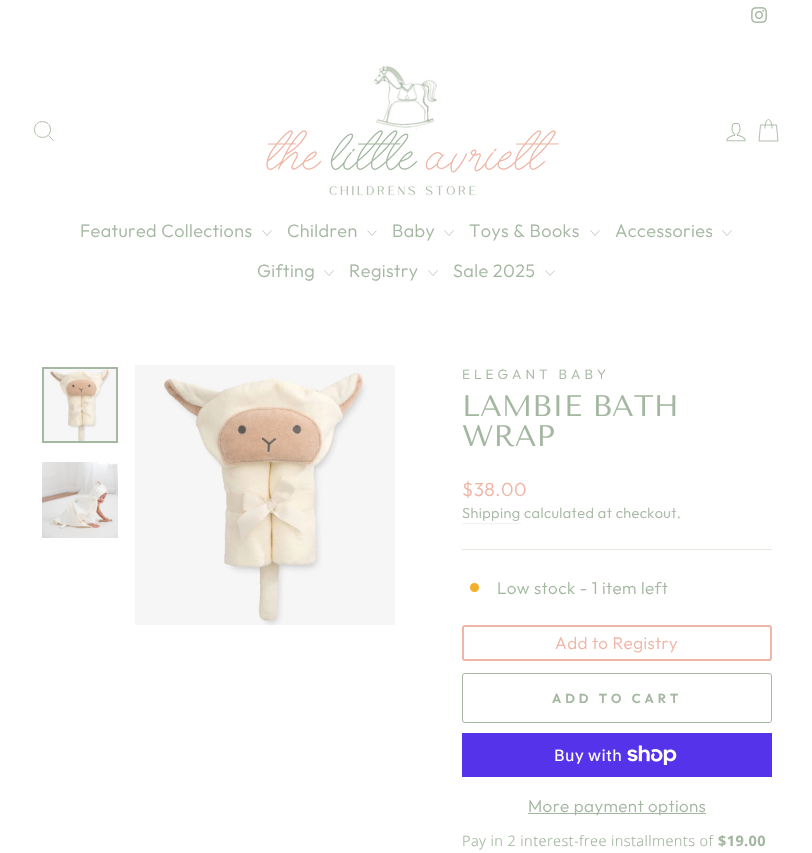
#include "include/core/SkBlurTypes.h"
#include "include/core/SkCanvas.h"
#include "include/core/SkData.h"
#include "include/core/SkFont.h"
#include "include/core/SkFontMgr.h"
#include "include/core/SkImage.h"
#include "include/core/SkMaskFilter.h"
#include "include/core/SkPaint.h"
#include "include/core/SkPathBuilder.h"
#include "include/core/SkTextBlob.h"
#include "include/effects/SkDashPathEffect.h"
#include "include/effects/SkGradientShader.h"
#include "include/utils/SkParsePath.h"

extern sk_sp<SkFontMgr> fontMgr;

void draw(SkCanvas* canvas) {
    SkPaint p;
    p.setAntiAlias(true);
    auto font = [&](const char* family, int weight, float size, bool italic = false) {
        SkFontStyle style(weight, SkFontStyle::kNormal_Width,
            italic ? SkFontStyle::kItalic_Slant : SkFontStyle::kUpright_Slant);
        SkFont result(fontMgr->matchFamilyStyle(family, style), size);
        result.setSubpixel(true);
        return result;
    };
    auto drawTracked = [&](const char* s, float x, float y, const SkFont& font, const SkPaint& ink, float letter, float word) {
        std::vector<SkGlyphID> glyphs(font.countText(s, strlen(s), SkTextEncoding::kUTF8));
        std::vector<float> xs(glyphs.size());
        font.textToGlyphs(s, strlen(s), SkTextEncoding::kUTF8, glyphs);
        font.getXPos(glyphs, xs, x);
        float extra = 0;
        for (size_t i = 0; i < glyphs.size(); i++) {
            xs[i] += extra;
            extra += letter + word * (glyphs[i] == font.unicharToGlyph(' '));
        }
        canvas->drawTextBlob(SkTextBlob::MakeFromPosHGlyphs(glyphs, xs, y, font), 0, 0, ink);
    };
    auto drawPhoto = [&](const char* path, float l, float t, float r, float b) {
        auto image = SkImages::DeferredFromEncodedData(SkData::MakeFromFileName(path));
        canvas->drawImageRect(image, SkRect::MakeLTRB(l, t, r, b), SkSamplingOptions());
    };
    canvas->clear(0xFFFFFFFF);
    drawPhoto("media/1.png", 751, 7, 767, 23);
    p.setStyle(SkPaint::kStroke_Style);
    p.setStrokeWidth(0.9f);
    p.setColor(0xFFA4B8A1);
    canvas->drawPath(SkPathBuilder().moveTo(50.5f, 129.5f).cubicTo(50.5f, 140, 34.5f, 140, 34.5f, 129.5f).cubicTo(34.5f, 119, 50.5f, 119, 50.5f, 129.5f).close().moveTo(53.5f, 140.5f).lineTo(48.5f, 135.5f).detach(), p);
    drawPhoto("media/2.png", 266, 66, 559, 196);
    drawPhoto("media/3.png", 726, 122, 746, 142);
    canvas->drawPath(SkPathBuilder().moveTo(765, 128.5f).cubicTo(765, 116.5f, 772, 116.5f, 772, 128.5f).moveTo(760.5f, 125).lineTo(776.5f, 125).lineTo(778, 141).lineTo(759, 141).close().detach(), p);
    auto font1 = font("Outfit", 300, 18);
    p.setStyle(SkPaint::kFill_Style);
    drawTracked("Featured Collections", 80, 237, font1, p, 0.4f, 0);
    p.setStyle(SkPaint::kStroke_Style);
    p.setStrokeWidth(0.7f);
    canvas->drawPath(SkPathBuilder().moveTo(262.5f, 230.5f).lineTo(267, 235.5f).lineTo(271.5f, 230.5f).detach(), p);
    p.setStyle(SkPaint::kFill_Style);
    drawTracked("Children", 287, 237, font1, p, 0.4f, 0);
    p.setStyle(SkPaint::kStroke_Style);
    canvas->drawPath(SkPathBuilder().moveTo(367.5f, 230.5f).lineTo(372, 235.5f).lineTo(376.5f, 230.5f).detach(), p);
    p.setStyle(SkPaint::kFill_Style);
    drawTracked("Baby", 392, 237, font1, p, 0.4f, 0);
    p.setStyle(SkPaint::kStroke_Style);
    canvas->drawPath(SkPathBuilder().moveTo(444.5f, 230.5f).lineTo(449, 235.5f).lineTo(453.5f, 230.5f).detach(), p);
    p.setStyle(SkPaint::kFill_Style);
    drawTracked("Toys & Books", 469, 237, font1, p, 0.4f, 0);
    p.setStyle(SkPaint::kStroke_Style);
    canvas->drawPath(SkPathBuilder().moveTo(590.5f, 230.5f).lineTo(595, 235.5f).lineTo(599.5f, 230.5f).detach(), p);
    p.setStyle(SkPaint::kFill_Style);
    drawTracked("Accessories", 615, 237, font1, p, 0.4f, 0);
    p.setStyle(SkPaint::kStroke_Style);
    canvas->drawPath(SkPathBuilder().moveTo(722.5f, 230.5f).lineTo(727, 235.5f).lineTo(731.5f, 230.5f).detach(), p);
    p.setStyle(SkPaint::kFill_Style);
    drawTracked("Gifting", 257, 277, font1, p, 0.4f, 0);
    p.setStyle(SkPaint::kStroke_Style);
    canvas->drawPath(SkPathBuilder().moveTo(324.5f, 270.5f).lineTo(329, 275.5f).lineTo(333.5f, 270.5f).detach(), p);
    p.setStyle(SkPaint::kFill_Style);
    drawTracked("Registry", 349, 277, font1, p, 0.4f, 0);
    p.setStyle(SkPaint::kStroke_Style);
    canvas->drawPath(SkPathBuilder().moveTo(428.5f, 270.5f).lineTo(433, 275.5f).lineTo(437.5f, 270.5f).detach(), p);
    p.setStyle(SkPaint::kFill_Style);
    drawTracked("Sale 2025", 453, 277, font1, p, 0.4f, 0);
    p.setStyle(SkPaint::kStroke_Style);
    canvas->drawPath(SkPathBuilder().moveTo(545.5f, 270.5f).lineTo(550, 275.5f).lineTo(554.5f, 270.5f).detach(), p);
    drawPhoto("media/4.png", 44, 369, 116, 441);
    p.setStrokeWidth(2);
    canvas->drawRect(SkRect::MakeLTRB(43, 368, 117, 442), p);
    drawPhoto("media/5.png", 42, 462, 118, 538);
    drawPhoto("media/6.png", 135, 365, 395, 625);
    auto font2 = font("Outfit", 300, 13.6f);
    p.setStyle(SkPaint::kFill_Style);
    drawTracked("ELEGANT BABY", 462, 379, font2, p, 4, 0);
    auto font3 = font("Tenor Sans", 400, 29.75f);
    canvas->drawString("LAMBIE BATH", 462, 416, font3, p);
    canvas->drawString("WRAP", 462, 446, font3, p);
    auto font4 = font("Outfit", 300, 19);
    p.setColor(0xFFEFB6A7);
    drawTracked("$38.00", 462, 496, font4, p, 0.4f, 0);
    p.setColor(0xFFF1F4F1);
    canvas->drawRect(SkRect::MakeLTRB(462, 523, 521, 524), p);
    auto font5 = font("Outfit", 300, 14.5f);
    p.setColor(0xFFA4B8A1);
    drawTracked("Shipping", 462, 518, font5, p, 0.4f, 0);
    drawTracked("calculated at checkout.", 524, 518, font5, p, 0.4f, 0);
    p.setColor(0xFFE8E8E1);
    canvas->drawRect(SkRect::MakeLTRB(462, 549, 772, 550), p);
    p.setColor(0xFFF4AF29);
    canvas->drawCircle(474.5f, 587.5f, 4.5f, p);
    auto font6 = font("Outfit", 300, 17);
    p.setColor(0xFFA4B8A1);
    drawTracked("Low stock - 1 item left", 497, 594, font6, p, 0.4f, 0);
    p.setStyle(SkPaint::kStroke_Style);
    p.setColor(0xFFEFB6A7);
    canvas->drawRoundRect(SkRect::MakeLTRB(463, 626, 771, 660), 2, 2, p);
    p.setStyle(SkPaint::kFill_Style);
    drawTracked("Add to Registry", 555, 649, font6, p, 0.4f, 0);
    p.setStyle(SkPaint::kStroke_Style);
    p.setStrokeWidth(1);
    p.setColor(0xFFA4B8A1);
    canvas->drawRoundRect(SkRect::MakeLTRB(462.5f, 673.5f, 771.5f, 722.5f), 2.5f, 2.5f, p);
    auto font7 = font("Outfit", 600, 13);
    p.setStyle(SkPaint::kFill_Style);
    drawTracked("ADD TO CART", 552, 703, font7, p, 3.9f, 0);
    p.setColor(0xFF5433EB);
    canvas->drawRect(SkRect::MakeLTRB(462, 733, 772, 777), p);
    auto font8 = font("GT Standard", 400, 16);
    p.setColor(0xFFFFFFFF);
    drawTracked("Buy with", 554, 761, font8, p, 0.4f, 0);
    drawPhoto("media/7.png", 627, 745, 677, 765);
    p.setColor(0xFFA4B8A1);
    canvas->drawRect(SkRect::MakeLTRB(528, 813, 706, 814), p);
    drawTracked("More payment options", 528, 812, font6, p, 0.4f, 0);
    auto font9 = font("Noto Sans", 300, 14.5f);
    drawTracked("Pay in 2 interest-free installments of", 462, 846, font9, p, 0.4f, 0);
    auto font10 = font("Noto Sans", 700, 14.5f);
    drawTracked("$19.00", 718, 846, font10, p, 0.4f, 0);
}
